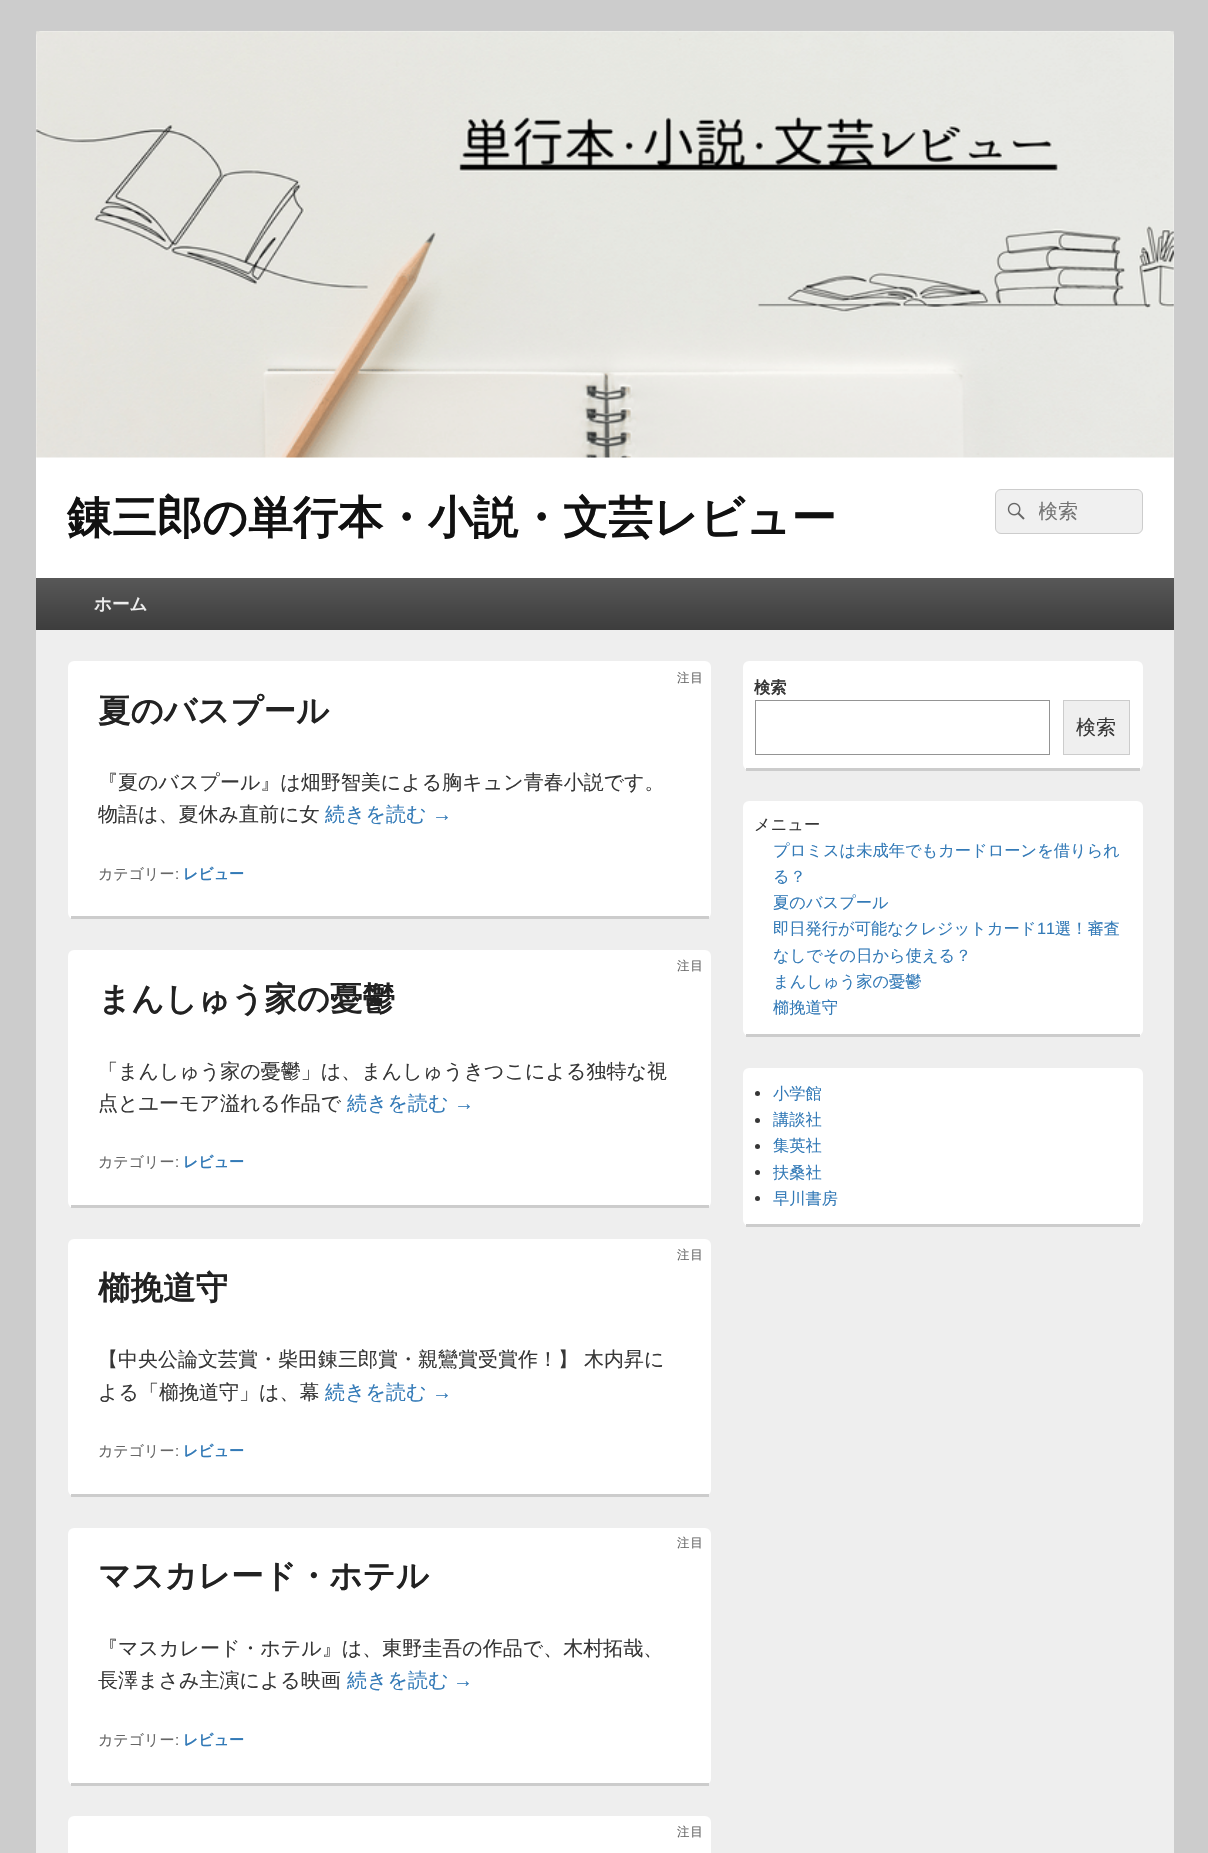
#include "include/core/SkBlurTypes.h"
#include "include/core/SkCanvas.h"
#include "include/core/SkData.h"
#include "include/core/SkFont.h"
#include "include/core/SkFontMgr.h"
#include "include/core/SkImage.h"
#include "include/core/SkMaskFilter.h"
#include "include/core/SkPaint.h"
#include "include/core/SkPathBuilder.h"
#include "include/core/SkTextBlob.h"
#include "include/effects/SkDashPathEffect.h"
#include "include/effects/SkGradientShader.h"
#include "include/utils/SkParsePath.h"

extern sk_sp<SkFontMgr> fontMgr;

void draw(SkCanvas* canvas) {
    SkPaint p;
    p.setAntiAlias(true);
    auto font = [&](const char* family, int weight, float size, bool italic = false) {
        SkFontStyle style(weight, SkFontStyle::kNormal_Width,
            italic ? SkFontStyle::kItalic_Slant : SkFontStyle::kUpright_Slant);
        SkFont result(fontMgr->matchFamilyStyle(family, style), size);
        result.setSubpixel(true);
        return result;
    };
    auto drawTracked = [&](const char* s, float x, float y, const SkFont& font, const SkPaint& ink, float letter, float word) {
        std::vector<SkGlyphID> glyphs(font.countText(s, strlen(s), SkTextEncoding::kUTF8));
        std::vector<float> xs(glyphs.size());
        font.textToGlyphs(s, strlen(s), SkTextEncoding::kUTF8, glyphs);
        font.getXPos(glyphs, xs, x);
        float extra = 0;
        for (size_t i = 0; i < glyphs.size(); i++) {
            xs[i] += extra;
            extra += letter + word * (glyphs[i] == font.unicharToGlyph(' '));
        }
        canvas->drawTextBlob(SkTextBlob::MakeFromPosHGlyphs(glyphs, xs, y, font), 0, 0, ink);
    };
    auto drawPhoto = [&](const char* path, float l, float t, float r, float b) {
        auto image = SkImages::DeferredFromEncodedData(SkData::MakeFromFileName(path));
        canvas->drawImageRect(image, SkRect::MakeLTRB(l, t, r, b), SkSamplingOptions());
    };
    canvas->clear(0xFFCCCCCC);
    p.setColor(0xFFEEEEEE);
    canvas->drawRoundRect(SkRect::MakeLTRB(36, 31, 1174, 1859), 6, 6, p);
    p.setColor(0xFFFFFFFF);
    canvas->drawPath(SkPathBuilder().moveTo(42, 31).lineTo(1168, 31).cubicTo(1171.5f, 31, 1174, 33.5f, 1174, 37).lineTo(1174, 630).lineTo(36, 630).lineTo(36, 37).cubicTo(36, 33.5f, 38.5f, 31, 42, 31).close().detach(), p);
    drawPhoto("media/1.png", 36, 31, 1174, 458);
    auto font1 = font("WenQuanYi Zen Hei", 700, 45);
    p.setColor(0xFF111111);
    canvas->drawString("錬三郎の単行本・小説・文芸レビュー", 67, 533, font1, p);
    p.setColor(0xFFF0F0F0);
    canvas->drawRoundRect(SkRect::MakeLTRB(995.5f, 489.5f, 1142.5f, 533.5f), 5.5f, 5.5f, p);
    p.setStyle(SkPaint::kStroke_Style);
    p.setStrokeWidth(1);
    p.setColor(0xFFCCCCCC);
    canvas->drawRoundRect(SkRect::MakeLTRB(995.5f, 489.5f, 1142.5f, 533.5f), 5.5f, 5.5f, p);
    drawPhoto("media/2.png", 1007, 502, 1025, 520);
    canvas->save();
    canvas->clipRect(SkRect::MakeLTRB(1039, 499, 1110, 525));
    auto font2 = font("WenQuanYi Zen Hei", 500, 20);
    p.setStyle(SkPaint::kFill_Style);
    p.setColor(0xFF757575);
    canvas->drawString("検索", 1038, 518, font2, p);
    canvas->restore();
    {
        const SkColor colors[] = {0xFF585858, 0xFF3D3D3D};
        const float stops[] = {0, 1};
        const SkPoint ends[] = {{605, 577}, {605, 630}};
        p.setShader(SkGradientShader::MakeLinear(ends, colors, stops, 2, SkTileMode::kClamp));
        p.setAlpha(255);
    }
    canvas->drawRect(SkRect::MakeLTRB(36, 578, 1174, 630), p);
    auto font3 = font("WenQuanYi Zen Hei", 700, 17.5f);
    p.setShader(nullptr);
    p.setColor(0xFFEEEEEE);
    canvas->drawString("ホーム", 94, 610, font3, p);
    p.setColor(0xFFFFFFFF);
    canvas->drawRoundRect(SkRect::MakeLTRB(68, 661, 711, 919), 6, 6, p);
    p.setColor(0xFFCCCCCC);
    canvas->drawRect(SkRect::MakeLTRB(71, 916, 709, 919), p);
    auto font4 = font("WenQuanYi Zen Hei", 500, 12.5f);
    p.setColor(0xFF666666);
    drawTracked("注目", 677, 682, font4, p, 1, 0);
    auto font5 = font("WenQuanYi Zen Hei", 700, 32.5f);
    p.setColor(0xFF222222);
    canvas->drawString("夏のバスプール", 98, 722, font5, p);
    p.setColor(0xFF373737);
    canvas->drawString("『夏のバスプール』は畑野智美による胸キュン青春小説です。", 98, 789, font2, p);
    canvas->drawString("物語は、夏休み直前に女", 98, 821, font2, p);
    p.setColor(0xFF337AB7);
    canvas->drawString("続きを読む", 325, 821, font2, p);
    auto font6 = font("Liberation Sans", 400, 20);
    canvas->drawString("→", 432, 821, font6, p);
    auto font7 = font("WenQuanYi Zen Hei", 500, 15);
    p.setColor(0xFF666666);
    canvas->drawString("カテゴリー", 98, 879, font7, p);
    auto font8 = font("Liberation Sans", 400, 15);
    canvas->drawString(":", 175, 879, font8, p);
    auto font9 = font("WenQuanYi Zen Hei", 700, 15);
    p.setColor(0xFF337AB7);
    canvas->drawString("レビュー", 183, 879, font9, p);
    p.setColor(0xFFFFFFFF);
    canvas->drawRoundRect(SkRect::MakeLTRB(68, 950, 711, 1208), 6, 6, p);
    p.setColor(0xFFCCCCCC);
    canvas->drawRect(SkRect::MakeLTRB(71, 1205, 709, 1208), p);
    p.setColor(0xFF666666);
    drawTracked("注目", 677, 970, font4, p, 1, 0);
    p.setColor(0xFF222222);
    canvas->drawString("まんしゅう家の憂鬱", 98, 1010, font5, p);
    p.setColor(0xFF373737);
    canvas->drawString("「まんしゅう家の憂鬱」は、まんしゅうきつこによる独特な視", 98, 1078, font2, p);
    canvas->drawString("点とユーモア溢れる作品で", 98, 1110, font2, p);
    p.setColor(0xFF337AB7);
    canvas->drawString("続きを読む", 347, 1110, font2, p);
    canvas->drawString("→", 454, 1110, font6, p);
    p.setColor(0xFF666666);
    canvas->drawString("カテゴリー", 98, 1167, font7, p);
    canvas->drawString(":", 175, 1167, font8, p);
    p.setColor(0xFF337AB7);
    canvas->drawString("レビュー", 183, 1167, font9, p);
    p.setColor(0xFFFFFFFF);
    canvas->drawRoundRect(SkRect::MakeLTRB(68, 1239, 711, 1496), 6, 6, p);
    p.setColor(0xFFCCCCCC);
    canvas->drawRect(SkRect::MakeLTRB(71, 1494, 709, 1497), p);
    p.setColor(0xFF666666);
    drawTracked("注目", 677, 1259, font4, p, 1, 0);
    p.setColor(0xFF222222);
    canvas->drawString("櫛挽道守", 98, 1299, font5, p);
    p.setColor(0xFF373737);
    canvas->drawString("【中央公論文芸賞・柴田錬三郎賞・親鸞賞受賞作！】 木内昇に", 98, 1366, font2, p);
    canvas->drawString("よる「櫛挽道守」は、幕", 98, 1399, font2, p);
    p.setColor(0xFF337AB7);
    canvas->drawString("続きを読む", 325, 1399, font2, p);
    canvas->drawString("→", 432, 1399, font6, p);
    p.setColor(0xFF666666);
    canvas->drawString("カテゴリー", 98, 1456, font7, p);
    canvas->drawString(":", 175, 1456, font8, p);
    p.setColor(0xFF337AB7);
    canvas->drawString("レビュー", 183, 1456, font9, p);
    p.setColor(0xFFFFFFFF);
    canvas->drawRoundRect(SkRect::MakeLTRB(68, 1528, 711, 1785), 6, 6, p);
    p.setColor(0xFFCCCCCC);
    canvas->drawRect(SkRect::MakeLTRB(71, 1783, 709, 1786), p);
    p.setColor(0xFF666666);
    drawTracked("注目", 677, 1547, font4, p, 1, 0);
    p.setColor(0xFF222222);
    canvas->drawString("マスカレード・ホテル", 98, 1587, font5, p);
    p.setColor(0xFF373737);
    canvas->drawString("『マスカレード・ホテル』は、東野圭吾の作品で、木村拓哉、", 98, 1655, font2, p);
    canvas->drawString("長澤まさみ主演による映画", 98, 1687, font2, p);
    p.setColor(0xFF337AB7);
    canvas->drawString("続きを読む", 347, 1687, font2, p);
    canvas->drawString("→", 453, 1687, font6, p);
    p.setColor(0xFF666666);
    canvas->drawString("カテゴリー", 98, 1745, font7, p);
    canvas->drawString(":", 175, 1745, font8, p);
    p.setColor(0xFF337AB7);
    canvas->drawString("レビュー", 183, 1745, font9, p);
    p.setColor(0xFFFFFFFF);
    canvas->drawRoundRect(SkRect::MakeLTRB(68, 1816, 711, 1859), 6, 6, p);
    p.setColor(0xFF666666);
    drawTracked("注目", 677, 1836, font4, p, 1, 0);
    p.setColor(0xFFFFFFFF);
    canvas->drawRoundRect(SkRect::MakeLTRB(743, 661, 1143, 770), 6, 6, p);
    p.setColor(0xFFCCCCCC);
    canvas->drawRect(SkRect::MakeLTRB(746, 768, 1140, 771), p);
    auto font10 = font("WenQuanYi Zen Hei", 700, 16.25f);
    p.setColor(0xFF373737);
    canvas->drawString("検索", 754, 693, font10, p);
    p.setStyle(SkPaint::kStroke_Style);
    p.setColor(0xFF949494);
    canvas->drawRect(SkRect::MakeLTRB(755.5f, 700.5f, 1049.5f, 754.5f), p);
    p.setStyle(SkPaint::kFill_Style);
    p.setColor(0xFFEFEFEF);
    canvas->drawRect(SkRect::MakeLTRB(1063.5f, 700.5f, 1129.5f, 754.5f), p);
    p.setStyle(SkPaint::kStroke_Style);
    p.setColor(0xFFCCCCCC);
    canvas->drawRect(SkRect::MakeLTRB(1063.5f, 700.5f, 1129.5f, 754.5f), p);
    p.setStyle(SkPaint::kFill_Style);
    p.setColor(0xFF373737);
    canvas->drawString("検索", 1076, 734, font2, p);
    p.setColor(0xFFFFFFFF);
    canvas->drawRoundRect(SkRect::MakeLTRB(743, 801, 1143, 1036), 6, 6, p);
    p.setColor(0xFFCCCCCC);
    canvas->drawRect(SkRect::MakeLTRB(746, 1034, 1140, 1037), p);
    auto font11 = font("WenQuanYi Zen Hei", 500, 16.25f);
    p.setColor(0xFF373737);
    canvas->drawString("メニュー", 754, 830, font11, p);
    p.setColor(0xFF337AB7);
    {
        const struct { const char* s; float x, y; } items[] = {
            {"プロミスは未成年でもカードローンを借りられ", 773, 856},
            {"る？", 773, 882},
            {"夏のバスプール", 773, 908},
            {"即日発行が可能なクレジットカード", 773, 934},
        };
        for (auto [s, x, y] : items) {
            canvas->drawString(s, x, y, font11, p);
        }
    }
    auto font12 = font("Liberation Sans", 400, 16.25f);
    canvas->drawString("11", 1037, 934, font12, p);
    {
        const struct { const char* s; float x, y; } items[] = {
            {"選！審査", 1055, 934},
            {"なしでその日から使える？", 773, 961},
            {"まんしゅう家の憂鬱", 773, 987},
            {"櫛挽道守", 773, 1013},
        };
        for (auto [s, x, y] : items) {
            canvas->drawString(s, x, y, font11, p);
        }
    }
    p.setColor(0xFFFFFFFF);
    canvas->drawRoundRect(SkRect::MakeLTRB(743, 1068, 1143, 1226), 6, 6, p);
    p.setColor(0xFFCCCCCC);
    canvas->drawRect(SkRect::MakeLTRB(746, 1224, 1140, 1227), p);
    p.setColor(0xFF373737);
    canvas->drawCircle(757.5f, 1093.5f, 2.5f, p);
    p.setColor(0xFF337AB7);
    canvas->drawString("小学館", 773, 1099, font11, p);
    p.setColor(0xFF373737);
    canvas->drawCircle(757.5f, 1120.5f, 2.5f, p);
    p.setColor(0xFF337AB7);
    canvas->drawString("講談社", 773, 1125, font11, p);
    p.setColor(0xFF373737);
    canvas->drawCircle(757.5f, 1146.5f, 2.5f, p);
    p.setColor(0xFF337AB7);
    canvas->drawString("集英社", 773, 1151, font11, p);
    p.setColor(0xFF373737);
    canvas->drawCircle(757.5f, 1172.5f, 2.5f, p);
    p.setColor(0xFF337AB7);
    canvas->drawString("扶桑社", 773, 1178, font11, p);
    p.setColor(0xFF373737);
    canvas->drawCircle(757.5f, 1198.5f, 2.5f, p);
    p.setColor(0xFF337AB7);
    canvas->drawString("早川書房", 773, 1204, font11, p);
}
